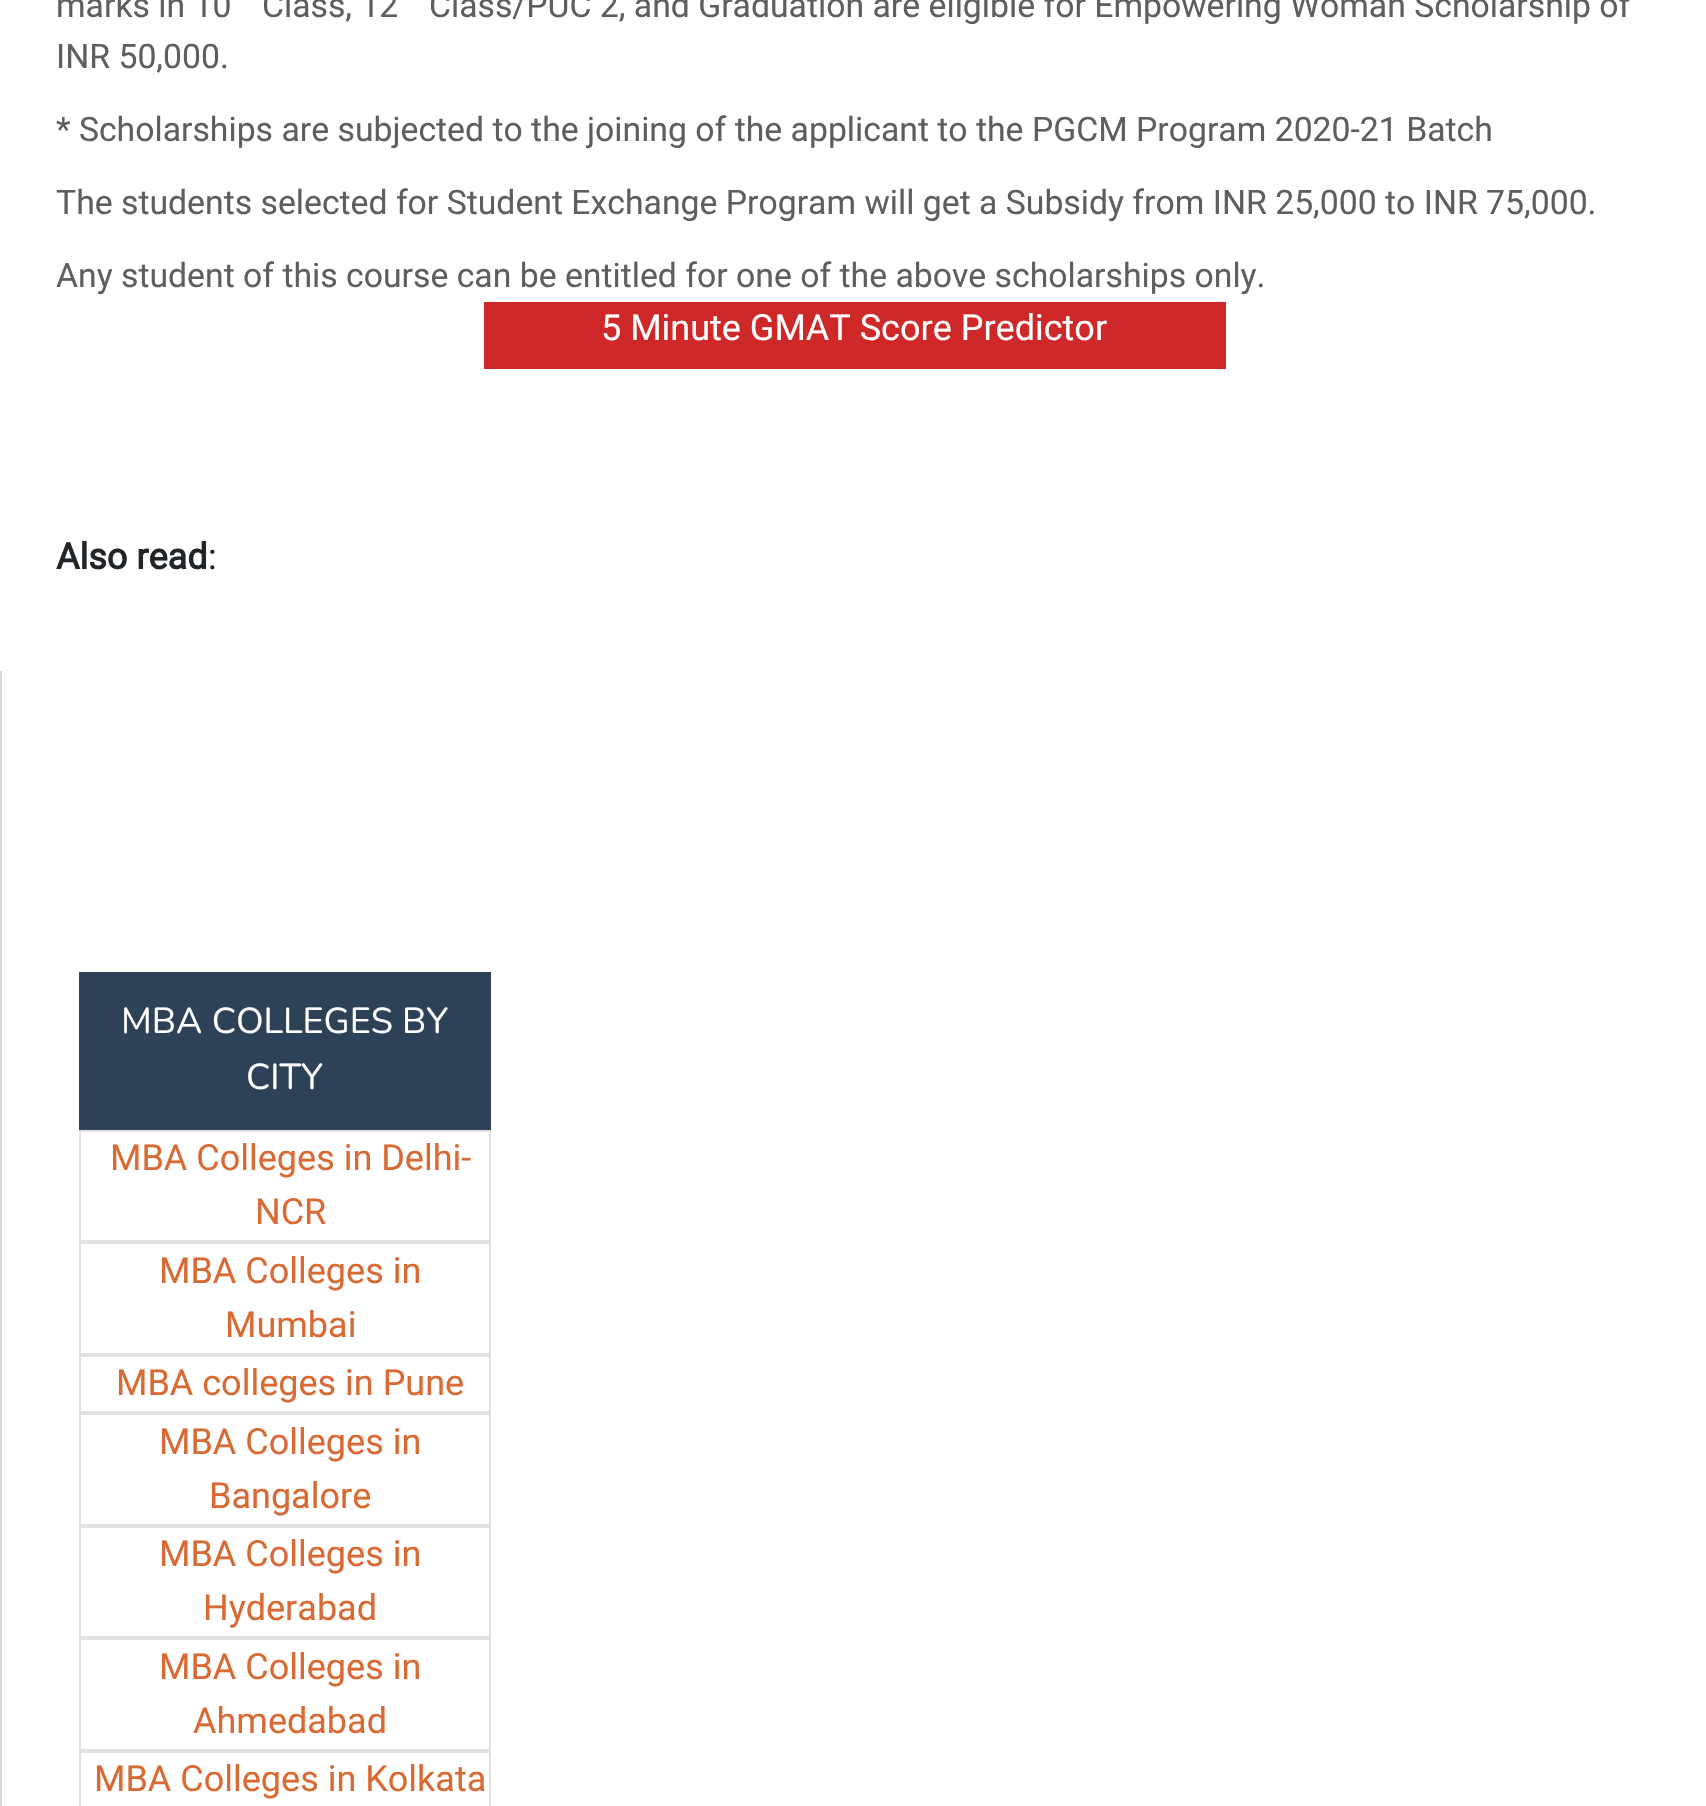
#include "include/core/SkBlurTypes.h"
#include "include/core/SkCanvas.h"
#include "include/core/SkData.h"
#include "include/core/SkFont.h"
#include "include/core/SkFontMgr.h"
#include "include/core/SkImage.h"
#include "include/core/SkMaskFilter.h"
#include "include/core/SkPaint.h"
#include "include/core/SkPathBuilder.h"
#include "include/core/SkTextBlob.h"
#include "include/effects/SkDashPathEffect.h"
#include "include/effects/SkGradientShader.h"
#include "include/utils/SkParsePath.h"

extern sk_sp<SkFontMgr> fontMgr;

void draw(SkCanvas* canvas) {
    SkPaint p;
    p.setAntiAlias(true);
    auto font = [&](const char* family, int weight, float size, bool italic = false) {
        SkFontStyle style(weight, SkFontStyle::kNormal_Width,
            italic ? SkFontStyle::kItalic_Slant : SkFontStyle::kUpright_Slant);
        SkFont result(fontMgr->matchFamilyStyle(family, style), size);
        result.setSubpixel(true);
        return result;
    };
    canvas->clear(0xFFFFFFFF);
    auto font1 = font("Roboto", 400, 33.75f);
    p.setColor(0xFF5E5E5F);
    {
        const struct { const char* s; float x, y; } items[] = {
            {"marks in 10", 56, 17},
            {"Class, 12", 262, 17},
            {"Class/PUC 2, and Graduation are eligible for Empowering Woman Scholarship of", 429, 17},
            {"INR 50,000.", 56, 68},
            {"* Scholarships are subjected to the joining of the applicant to the PGCM Program 2020-21 Batch", 56, 141},
            {"The students selected for Student Exchange Program will get a Subsidy from INR 25,000 to INR 75,000.", 56, 214},
            {"Any student of this course can be entitled for one of the above scholarships only.", 56, 287},
        };
        for (auto [s, x, y] : items) {
            canvas->drawString(s, x, y, font1, p);
        }
    }
    p.setColor(0xFFCF2828);
    canvas->drawRect(SkRect::MakeLTRB(484, 302, 1226, 369), p);
    auto font2 = font("Roboto", 400, 36);
    p.setColor(0xFFFFFFFF);
    canvas->drawString("5 Minute GMAT Score Predictor", 601, 340, font2, p);
    auto font3 = font("Roboto", 700, 36);
    p.setColor(0xFF212529);
    canvas->drawString("Also read", 56, 569, font3, p);
    canvas->drawString(":", 208, 569, font2, p);
    p.setColor(0xFFD9D9D9);
    canvas->drawRect(SkRect::MakeLTRB(0, 671, 2, 1806), p);
    p.setColor(0xFF2D4257);
    canvas->drawRect(SkRect::MakeLTRB(79, 972, 491, 1130), p);
    auto font4 = font("Nunito", 400, 36);
    p.setColor(0xFFFFFFFF);
    canvas->drawString("MBA COLLEGES BY", 121, 1033, font4, p);
    canvas->drawString("CITY", 246, 1089, font4, p);
    p.setStyle(SkPaint::kStroke_Style);
    p.setStrokeWidth(2);
    p.setColor(0xFFE1E1E1);
    canvas->drawRect(SkRect::MakeLTRB(80, 1131, 490, 1241), p);
    p.setStyle(SkPaint::kFill_Style);
    p.setColor(0xFFD96A34);
    canvas->drawString("MBA Colleges in Delhi-", 110, 1170, font2, p);
    canvas->drawString("NCR", 255, 1224, font2, p);
    p.setStyle(SkPaint::kStroke_Style);
    p.setColor(0xFFE1E1E1);
    canvas->drawRect(SkRect::MakeLTRB(80, 1243, 490, 1354), p);
    p.setStyle(SkPaint::kFill_Style);
    p.setColor(0xFFD96A34);
    canvas->drawString("MBA Colleges in", 159, 1283, font2, p);
    canvas->drawString("Mumbai", 225, 1337, font2, p);
    p.setStyle(SkPaint::kStroke_Style);
    p.setColor(0xFFE1E1E1);
    canvas->drawRect(SkRect::MakeLTRB(80, 1356, 490, 1412), p);
    p.setStyle(SkPaint::kFill_Style);
    p.setColor(0xFFD96A34);
    canvas->drawString("MBA colleges in Pune", 116, 1395, font2, p);
    p.setStyle(SkPaint::kStroke_Style);
    p.setColor(0xFFE1E1E1);
    canvas->drawRect(SkRect::MakeLTRB(80, 1414, 490, 1525), p);
    p.setStyle(SkPaint::kFill_Style);
    p.setColor(0xFFD96A34);
    canvas->drawString("MBA Colleges in", 159, 1454, font2, p);
    canvas->drawString("Bangalore", 209, 1508, font2, p);
    p.setStyle(SkPaint::kStroke_Style);
    p.setColor(0xFFE1E1E1);
    canvas->drawRect(SkRect::MakeLTRB(80, 1527, 490, 1637), p);
    p.setStyle(SkPaint::kFill_Style);
    p.setColor(0xFFD96A34);
    canvas->drawString("MBA Colleges in", 159, 1566, font2, p);
    canvas->drawString("Hyderabad", 203, 1620, font2, p);
    p.setStyle(SkPaint::kStroke_Style);
    p.setColor(0xFFE1E1E1);
    canvas->drawRect(SkRect::MakeLTRB(80, 1639, 490, 1750), p);
    p.setStyle(SkPaint::kFill_Style);
    p.setColor(0xFFD96A34);
    canvas->drawString("MBA Colleges in", 159, 1679, font2, p);
    canvas->drawString("Ahmedabad", 193, 1733, font2, p);
    p.setStyle(SkPaint::kStroke_Style);
    p.setColor(0xFFE1E1E1);
    canvas->drawRect(SkRect::MakeLTRB(80, 1752, 490, 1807), p);
    p.setStyle(SkPaint::kFill_Style);
    p.setColor(0xFFD96A34);
    canvas->drawString("MBA Colleges in Kolkata", 94, 1791, font2, p);
}
